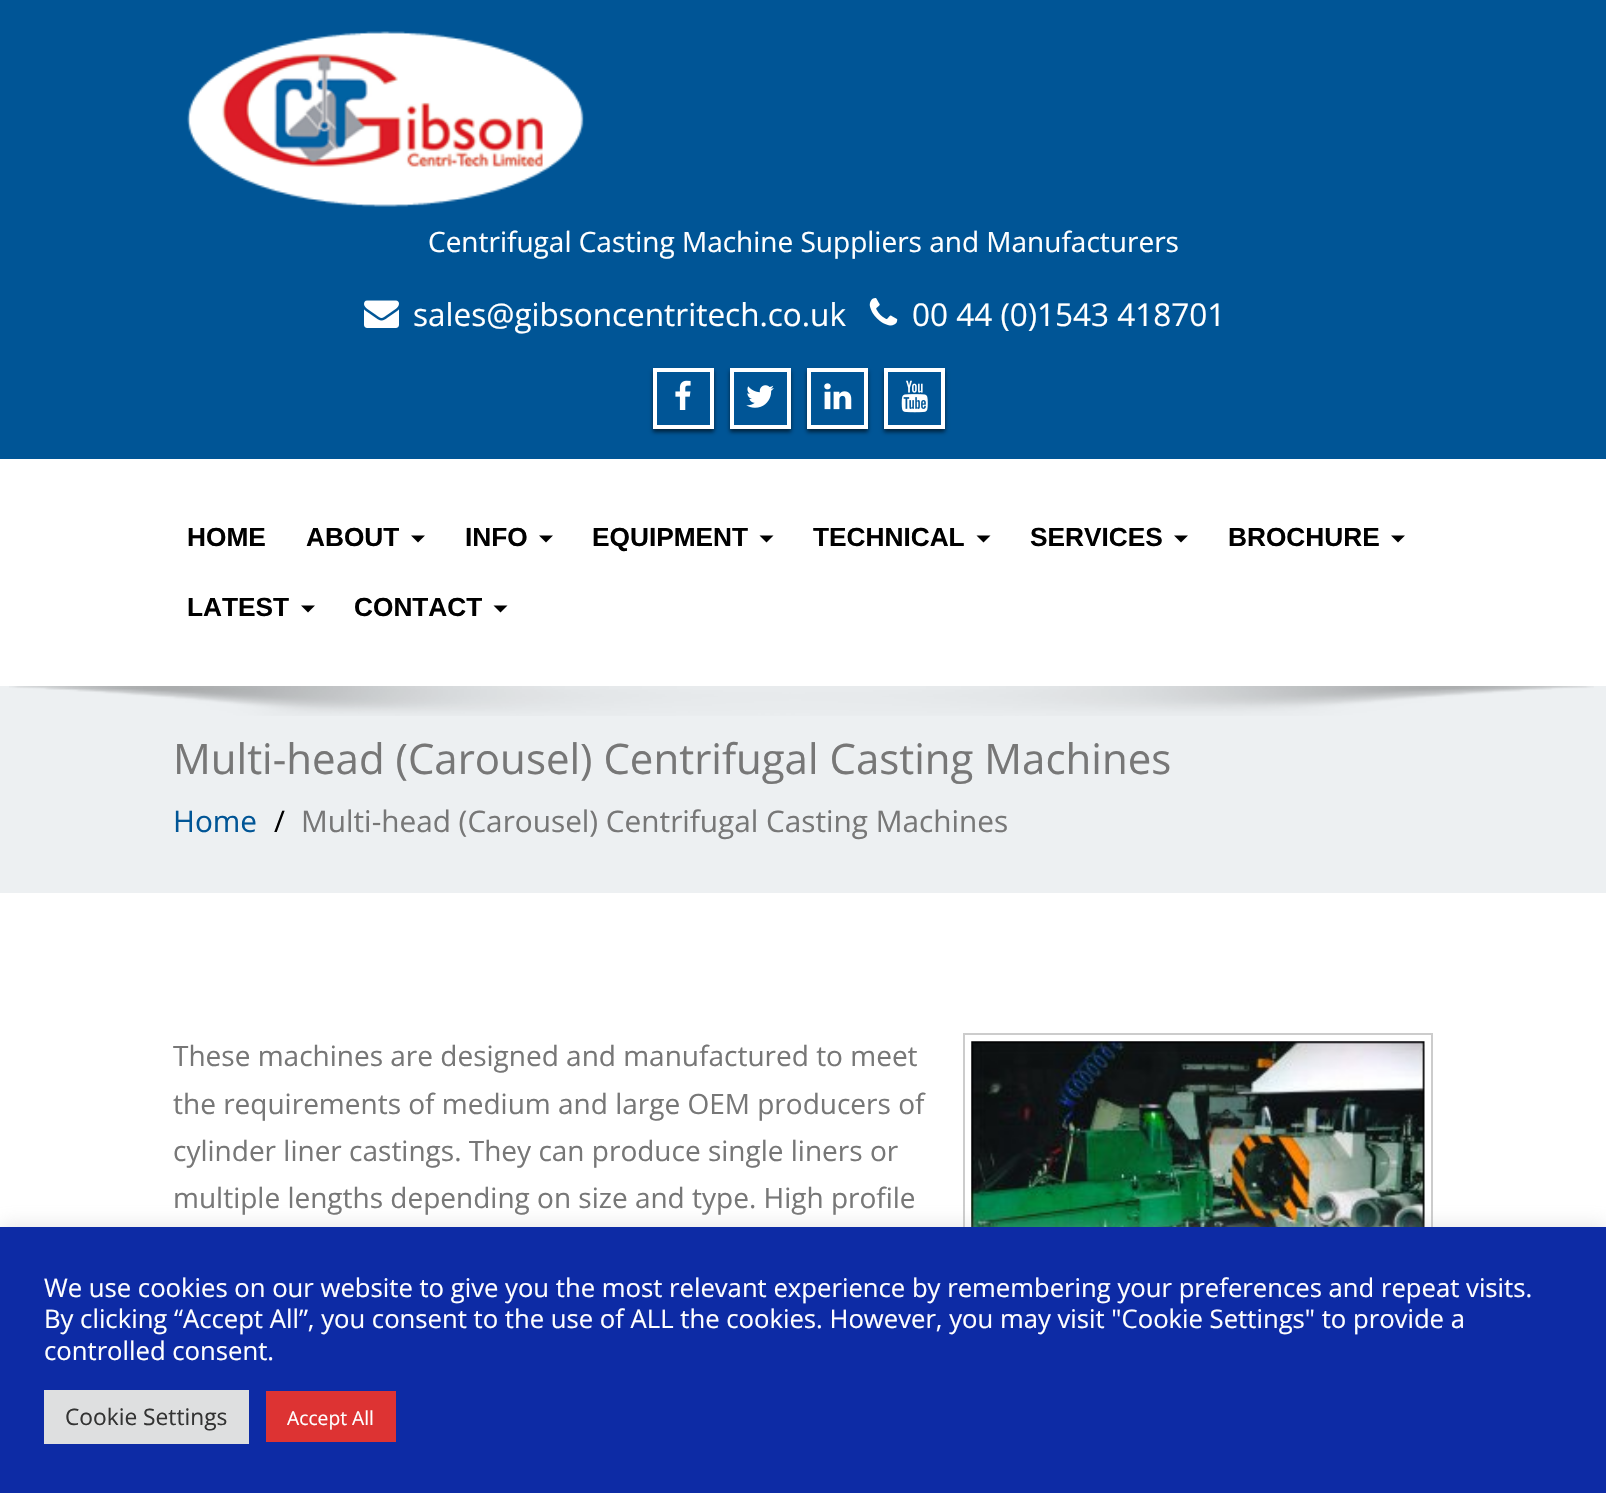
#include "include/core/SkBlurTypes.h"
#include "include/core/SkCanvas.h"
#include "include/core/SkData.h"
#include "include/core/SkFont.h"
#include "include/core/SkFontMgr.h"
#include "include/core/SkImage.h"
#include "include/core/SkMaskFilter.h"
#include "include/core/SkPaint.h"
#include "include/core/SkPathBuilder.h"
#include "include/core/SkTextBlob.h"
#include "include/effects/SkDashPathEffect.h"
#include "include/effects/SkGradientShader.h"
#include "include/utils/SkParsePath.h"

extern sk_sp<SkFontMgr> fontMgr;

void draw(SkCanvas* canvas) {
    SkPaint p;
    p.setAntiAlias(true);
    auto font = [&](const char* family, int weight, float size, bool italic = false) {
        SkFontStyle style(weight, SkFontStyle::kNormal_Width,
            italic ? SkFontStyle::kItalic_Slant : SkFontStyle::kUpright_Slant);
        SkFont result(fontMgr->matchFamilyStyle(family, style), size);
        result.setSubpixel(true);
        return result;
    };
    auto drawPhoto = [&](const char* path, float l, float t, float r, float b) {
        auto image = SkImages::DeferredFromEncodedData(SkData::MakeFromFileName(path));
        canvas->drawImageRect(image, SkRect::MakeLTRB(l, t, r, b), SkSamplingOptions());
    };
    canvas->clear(0xFFFFFFFF);
    p.setColor(0xFF005596);
    canvas->drawRect(SkRect::MakeLTRB(0, 0, 1606, 459), p);
    drawPhoto("media/1.png", 187, 31, 584, 207);
    auto font1 = font("Open Sans", 400, 28);
    p.setColor(0xFFFFFFFF);
    canvas->drawString("Centrifugal Casting Machine Suppliers and Manufacturers", 428, 252, font1, p);
    drawPhoto("media/2.png", 364, 300, 399, 328);
    auto font2 = font("Open Sans", 400, 31.5f);
    canvas->drawString("sales@gibsoncentritech.co.uk", 413, 326, font2, p);
    drawPhoto("media/3.png", 869, 298, 898, 326);
    canvas->drawString("00 44 (0)1543 418701", 912, 326, font2, p);
    canvas->save();
    canvas->clipPath(SkPathBuilder(SkPathFillType::kEvenOdd).moveTo(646, 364).lineTo(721, 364).lineTo(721, 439).lineTo(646, 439).close().moveTo(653, 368).lineTo(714, 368).lineTo(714, 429).lineTo(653, 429).close().detach(), true);
    p.setColor(0x99000000);
    p.setMaskFilter(SkMaskFilter::MakeBlur(kNormal_SkBlurStyle, 2));
    canvas->drawRect(SkRect::MakeLTRB(653, 371, 714, 432), p);
    p.setMaskFilter(nullptr);
    canvas->restore();
    p.setStyle(SkPaint::kStroke_Style);
    p.setStrokeWidth(4);
    p.setColor(0xFFFFFFFF);
    canvas->drawRect(SkRect::MakeLTRB(655, 370, 712, 427), p);
    drawPhoto("media/4.png", 675, 380, 691, 410);
    canvas->save();
    canvas->clipPath(SkPathBuilder(SkPathFillType::kEvenOdd).moveTo(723, 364).lineTo(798, 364).lineTo(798, 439).lineTo(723, 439).close().moveTo(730, 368).lineTo(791, 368).lineTo(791, 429).lineTo(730, 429).close().detach(), true);
    p.setStyle(SkPaint::kFill_Style);
    p.setColor(0x99000000);
    p.setMaskFilter(SkMaskFilter::MakeBlur(kNormal_SkBlurStyle, 2));
    canvas->drawRect(SkRect::MakeLTRB(730, 371, 791, 432), p);
    p.setMaskFilter(nullptr);
    canvas->restore();
    p.setStyle(SkPaint::kStroke_Style);
    p.setColor(0xFFFFFFFF);
    canvas->drawRect(SkRect::MakeLTRB(732, 370, 789, 427), p);
    drawPhoto("media/5.png", 746, 385, 774, 408);
    canvas->save();
    canvas->clipPath(SkPathBuilder(SkPathFillType::kEvenOdd).moveTo(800, 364).lineTo(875, 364).lineTo(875, 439).lineTo(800, 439).close().moveTo(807, 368).lineTo(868, 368).lineTo(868, 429).lineTo(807, 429).close().detach(), true);
    p.setStyle(SkPaint::kFill_Style);
    p.setColor(0x99000000);
    p.setMaskFilter(SkMaskFilter::MakeBlur(kNormal_SkBlurStyle, 2));
    canvas->drawRect(SkRect::MakeLTRB(807, 371, 868, 432), p);
    p.setMaskFilter(nullptr);
    canvas->restore();
    p.setStyle(SkPaint::kStroke_Style);
    p.setColor(0xFFFFFFFF);
    canvas->drawRect(SkRect::MakeLTRB(809, 370, 866, 427), p);
    drawPhoto("media/6.png", 824, 383, 852, 410);
    canvas->save();
    canvas->clipPath(SkPathBuilder(SkPathFillType::kEvenOdd).moveTo(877, 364).lineTo(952, 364).lineTo(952, 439).lineTo(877, 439).close().moveTo(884, 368).lineTo(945, 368).lineTo(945, 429).lineTo(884, 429).close().detach(), true);
    p.setStyle(SkPaint::kFill_Style);
    p.setColor(0x99000000);
    p.setMaskFilter(SkMaskFilter::MakeBlur(kNormal_SkBlurStyle, 2));
    canvas->drawRect(SkRect::MakeLTRB(884, 371, 945, 432), p);
    p.setMaskFilter(nullptr);
    canvas->restore();
    p.setStyle(SkPaint::kStroke_Style);
    p.setColor(0xFFFFFFFF);
    canvas->drawRect(SkRect::MakeLTRB(886, 370, 943, 427), p);
    drawPhoto("media/7.png", 901, 380, 928, 413);
    auto font3 = font("Liberation Sans", 700, 26.25f);
    p.setStyle(SkPaint::kFill_Style);
    p.setColor(0xFF000000);
    canvas->drawString("HOME", 187, 546, font3, p);
    canvas->drawString("ABOUT", 306, 546, font3, p);
    canvas->drawPath(SkPathBuilder().moveTo(411, 535.5f).lineTo(425, 535.5f).lineTo(418, 542.5f).close().detach(), p);
    canvas->drawString("INFO", 465, 546, font3, p);
    canvas->drawPath(SkPathBuilder().moveTo(539, 535.5f).lineTo(553, 535.5f).lineTo(546, 542.5f).close().detach(), p);
    canvas->drawString("EQUIPMENT", 592, 546, font3, p);
    canvas->drawPath(SkPathBuilder().moveTo(759.5f, 535.5f).lineTo(773.5f, 535.5f).lineTo(766.5f, 542.5f).close().detach(), p);
    canvas->drawString("TECHNICAL", 813, 546, font3, p);
    canvas->drawPath(SkPathBuilder().moveTo(976.5f, 535.5f).lineTo(990.5f, 535.5f).lineTo(983.5f, 542.5f).close().detach(), p);
    canvas->drawString("SERVICES", 1030, 546, font3, p);
    canvas->drawPath(SkPathBuilder().moveTo(1174, 535.5f).lineTo(1188, 535.5f).lineTo(1181, 542.5f).close().detach(), p);
    canvas->drawString("BROCHURE", 1228, 546, font3, p);
    canvas->drawPath(SkPathBuilder().moveTo(1391, 535.5f).lineTo(1405, 535.5f).lineTo(1398, 542.5f).close().detach(), p);
    canvas->drawString("LATEST", 187, 616, font3, p);
    canvas->drawPath(SkPathBuilder().moveTo(301, 605.5f).lineTo(315, 605.5f).lineTo(308, 612.5f).close().detach(), p);
    canvas->drawString("CONTACT", 354, 616, font3, p);
    canvas->drawPath(SkPathBuilder().moveTo(493.5f, 605.5f).lineTo(507.5f, 605.5f).lineTo(500.5f, 612.5f).close().detach(), p);
    p.setColor(0xFFEDF0F2);
    canvas->drawRect(SkRect::MakeLTRB(0, 686, 1606, 893), p);
    drawPhoto("media/8.png", 9, 686, 1594, 716);
    auto font4 = font("Open Sans", 400, 42);
    p.setColor(0xFF777777);
    canvas->drawString("Multi-head (Carousel) Centrifugal Casting Machines", 173, 774, font4, p);
    auto font5 = font("Open Sans", 400, 29.75f);
    p.setColor(0xFF005596);
    canvas->drawString("Home", 173, 832, font5, p);
    p.setColor(0xFF000000);
    canvas->drawString("/", 274, 832, font5, p);
    p.setColor(0xFF777777);
    canvas->drawString("Multi-head (Carousel) Centrifugal Casting Machines", 301, 832, font5, p);
    {
        const struct { const char* s; float x, y; } items[] = {
            {"These machines are designed and manufactured to meet", 173, 1066},
            {"the requirements of medium and large OEM producers of", 173, 1114},
            {"cylinder liner castings. They can produce single liners or", 173, 1161},
            {"multiple lengths depending on size and type. High profile", 173, 1208},
        };
        for (auto [s, x, y] : items) {
            canvas->drawString(s, x, y, font1, p);
        }
    }
    p.setStyle(SkPaint::kStroke_Style);
    p.setStrokeWidth(2);
    p.setColor(0xFFCCCCCC);
    canvas->drawRect(SkRect::MakeLTRB(964, 1034, 1432, 1450), p);
    drawPhoto("media/9.png", 971, 1041, 1425, 1227);
    p.setStyle(SkPaint::kFill_Style);
    p.setColor(0x4DACABAB);
    p.setMaskFilter(SkMaskFilter::MakeBlur(kNormal_SkBlurStyle, 9));
    canvas->drawRect(SkRect::MakeLTRB(0, 1225, 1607, 1493), p);
    p.setMaskFilter(nullptr);
    p.setColor(0xFF0D2BA5);
    canvas->drawRect(SkRect::MakeLTRB(0, 1227, 1606, 1493), p);
    auto font6 = font("Open Sans", 400, 25.67f);
    p.setColor(0xFFFFFFFF);
    {
        const struct { const char* s; float x, y; } items[] = {
            {"We use cookies on our website to give you the most relevant experience by remembering your preferences and repeat visits.", 44, 1297},
            {"By clicking “Accept All”, you consent to the use of ALL the cookies. However, you may visit \"Cookie Settings\" to provide a", 44, 1328},
            {"controlled consent.", 44, 1360},
        };
        for (auto [s, x, y] : items) {
            canvas->drawString(s, x, y, font6, p);
        }
    }
    p.setColor(0xFFDEDFE0);
    canvas->drawRect(SkRect::MakeLTRB(44, 1390, 249, 1444), p);
    auto font7 = font("Open Sans", 400, 22.75f);
    p.setColor(0xFF333333);
    canvas->drawString("Cookie Settings", 65, 1425, font7, p);
    p.setColor(0xFFDD3333);
    canvas->drawRect(SkRect::MakeLTRB(266, 1391, 396, 1442), p);
    auto font8 = font("Open Sans", 400, 19.25f);
    p.setColor(0xFFFFFFFF);
    canvas->drawString("Accept All", 287, 1425, font8, p);
}
